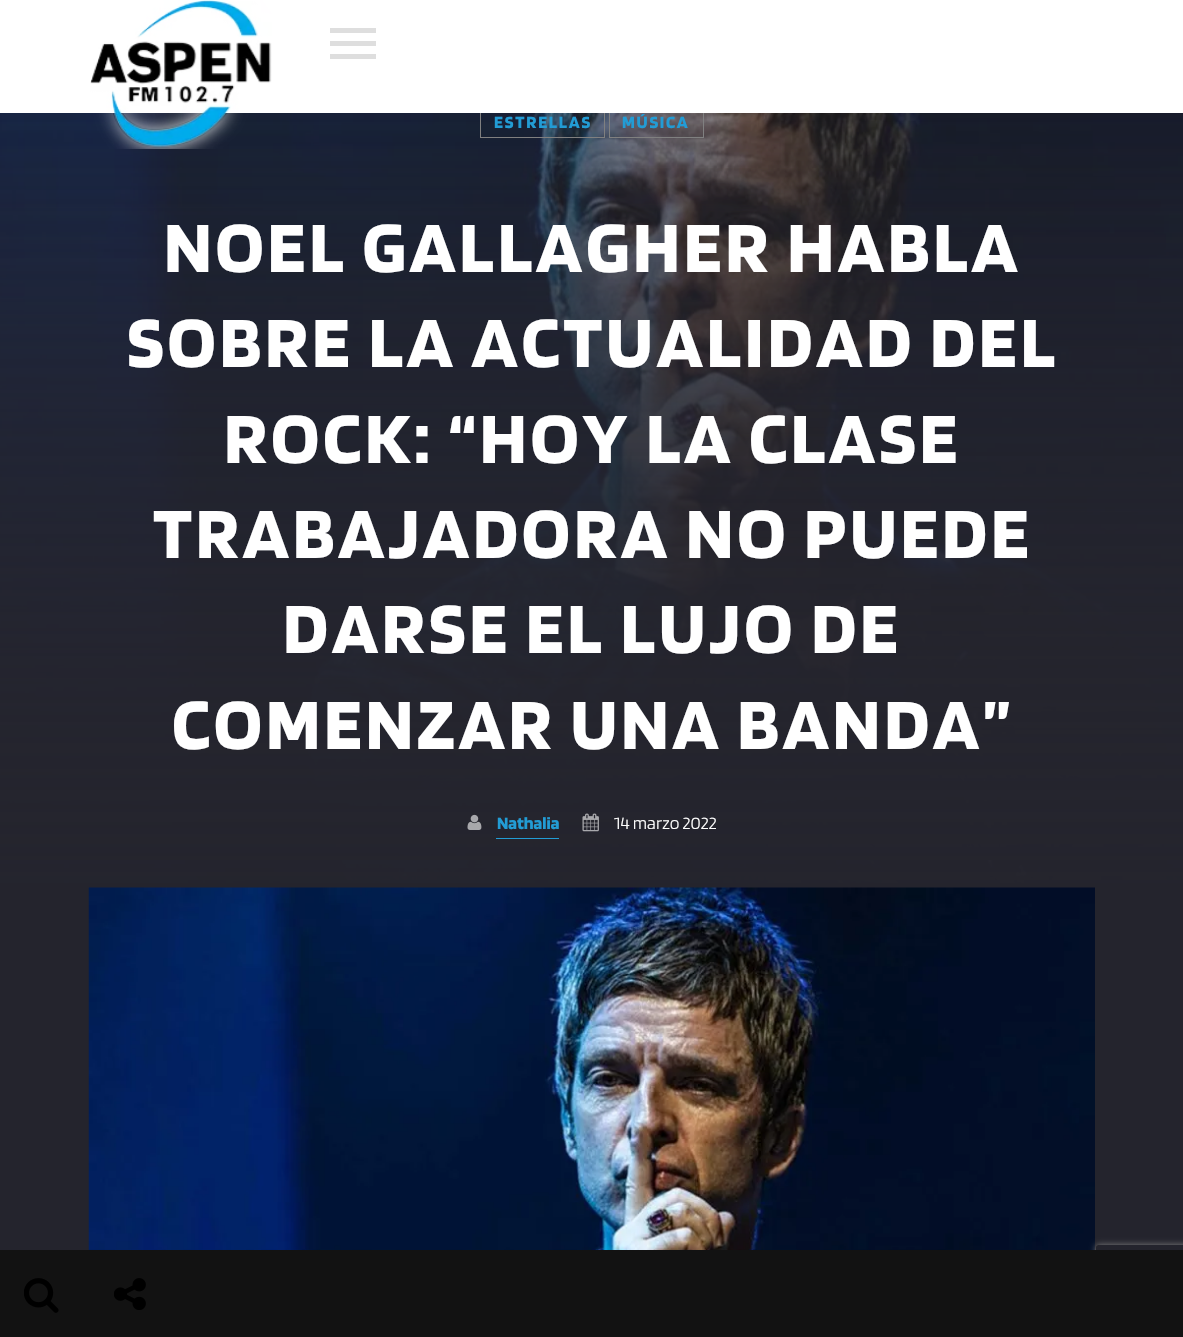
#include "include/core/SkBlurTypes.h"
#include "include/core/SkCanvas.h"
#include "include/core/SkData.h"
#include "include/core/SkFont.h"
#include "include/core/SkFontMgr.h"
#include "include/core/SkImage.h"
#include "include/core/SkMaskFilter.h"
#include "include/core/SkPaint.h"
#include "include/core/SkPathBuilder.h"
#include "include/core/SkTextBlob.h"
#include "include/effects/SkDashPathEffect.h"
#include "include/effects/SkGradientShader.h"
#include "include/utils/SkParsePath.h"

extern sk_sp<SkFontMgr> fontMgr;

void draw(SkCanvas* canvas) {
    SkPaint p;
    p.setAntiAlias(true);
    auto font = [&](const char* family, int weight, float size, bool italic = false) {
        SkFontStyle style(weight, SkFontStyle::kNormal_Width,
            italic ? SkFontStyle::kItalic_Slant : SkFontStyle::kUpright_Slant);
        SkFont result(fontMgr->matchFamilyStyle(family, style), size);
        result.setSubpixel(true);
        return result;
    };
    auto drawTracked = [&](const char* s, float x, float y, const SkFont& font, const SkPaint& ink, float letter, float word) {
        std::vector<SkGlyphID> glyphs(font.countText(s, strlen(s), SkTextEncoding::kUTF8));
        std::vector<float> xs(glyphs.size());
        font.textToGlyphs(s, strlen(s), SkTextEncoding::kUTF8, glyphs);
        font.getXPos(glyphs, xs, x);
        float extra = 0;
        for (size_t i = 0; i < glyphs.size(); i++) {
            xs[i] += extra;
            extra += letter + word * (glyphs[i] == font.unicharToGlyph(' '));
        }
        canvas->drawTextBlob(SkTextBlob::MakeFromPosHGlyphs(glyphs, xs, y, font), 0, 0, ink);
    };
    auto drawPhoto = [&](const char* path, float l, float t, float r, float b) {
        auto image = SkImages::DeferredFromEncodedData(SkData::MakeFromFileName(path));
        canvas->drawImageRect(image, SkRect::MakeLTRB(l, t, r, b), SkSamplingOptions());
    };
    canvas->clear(0xFF24242D);
    drawPhoto("media/4.png", 0, 113, 1183, 883);
    {
        const SkColor colors[] = {0x0024242D, 0x9924242D};
        const float stops[] = {0, 1};
        const SkPoint ends[] = {{592, -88}, {592, 883}};
        p.setShader(SkGradientShader::MakeLinear(ends, colors, stops, 2, SkTileMode::kClamp));
        p.setAlpha(255);
    }
    canvas->drawRect(SkRect::MakeLTRB(0, 113, 1183, 883), p);
    {
        const SkColor colors[] = {0x0024242D, 0xFF24242D};
        const float stops[] = {0, 1};
        const SkPoint ends[] = {{592, -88}, {592, 913}};
        p.setShader(SkGradientShader::MakeLinear(ends, colors, stops, 2, SkTileMode::kClamp));
        p.setAlpha(255);
    }
    canvas->drawRect(SkRect::MakeLTRB(0, 113, 1183, 883), p);
    {
        const SkColor colors[] = {0x0024242D, 0xFF24242D};
        const float stops[] = {0, 1};
        const SkPoint ends[] = {{592, 91}, {592, 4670}};
        p.setShader(SkGradientShader::MakeLinear(ends, colors, stops, 2, SkTileMode::kClamp));
        p.setAlpha(255);
    }
    canvas->drawRect(SkRect::MakeLTRB(363, 262, 931, 651), p);
    {
        const SkColor colors[] = {0x0024242D, 0xFF24242D};
        const float stops[] = {0, 1};
        const SkPoint ends[] = {{592, 91}, {592, 889}};
        p.setShader(SkGradientShader::MakeLinear(ends, colors, stops, 2, SkTileMode::kClamp));
        p.setAlpha(255);
    }
    canvas->drawRect(SkRect::MakeLTRB(0, 114, 1183, 860), p);
    p.setStyle(SkPaint::kStroke_Style);
    p.setStrokeWidth(1);
    p.setShader(nullptr);
    p.setColor(0xFF808080);
    canvas->drawRect(SkRect::MakeLTRB(480.5f, 104.5f, 604.5f, 137.5f), p);
    canvas->drawRect(SkRect::MakeLTRB(609.5f, 104.5f, 703.5f, 137.5f), p);
    p.setStyle(SkPaint::kFill_Style);
    p.setColor(0xFFFFFFFF);
    canvas->drawRect(SkRect::MakeLTRB(0, 0, 1183, 113), p);
    drawPhoto("media/1.png", 90, 0, 272, 149);
    p.setColor(0xFFDEDEDE);
    canvas->drawPath(SkPathBuilder().moveTo(330, 59).lineTo(376, 59).lineTo(376, 54).lineTo(330, 54).close().moveTo(330, 46).lineTo(376, 46).lineTo(376, 41).lineTo(330, 41).close().moveTo(330, 28).lineTo(330, 33).lineTo(376, 33).lineTo(376, 28).close().detach(), p);
    drawPhoto("media/7.png", 88, 887, 1095, 1250);
    canvas->save();
    canvas->clipPath(SkPathBuilder(SkPathFillType::kEvenOdd).moveTo(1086, 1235).lineTo(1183, 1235).lineTo(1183, 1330).lineTo(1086, 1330).close().moveTo(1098.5f, 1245).lineTo(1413.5f, 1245).cubicTo(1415, 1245, 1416, 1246, 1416, 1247.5f).lineTo(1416, 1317.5f).cubicTo(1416, 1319, 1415, 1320, 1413.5f, 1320).lineTo(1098.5f, 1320).cubicTo(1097, 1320, 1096, 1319, 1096, 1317.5f).lineTo(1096, 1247.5f).cubicTo(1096, 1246, 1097, 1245, 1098.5f, 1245).close().detach(), true);
    p.setColor(0xFF808080);
    p.setMaskFilter(SkMaskFilter::MakeBlur(kNormal_SkBlurStyle, 3));
    canvas->drawRoundRect(SkRect::MakeLTRB(1096, 1245, 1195, 1320), 2.5f, 2.5f, p);
    p.setMaskFilter(nullptr);
    canvas->restore();
    p.setColor(0xFF121212);
    canvas->drawRect(SkRect::MakeLTRB(0, 1250, 1183, 1337), p);
    drawPhoto("media/2.png", 24, 1278, 59, 1313);
    drawPhoto("media/3.png", 114, 1278, 146, 1310);
    auto font1 = font("Blinker", 700, 17.75f);
    p.setColor(0xFF229CD5);
    drawTracked("ESTRELLAS", 494, 128, font1, p, 1.75f, 0);
    drawTracked("MÚSICA", 622, 128, font1, p, 1.75f, 0);
    auto font2 = font("Blinker", 700, 75);
    p.setColor(0xFFFFFFFF);
    {
        const struct { const char* s; float x, y; } items[] = {
            {"NOEL GALLAGHER HABLA", 164, 272},
            {"SOBRE LA ACTUALIDAD DEL", 127, 367},
            {"ROCK: “HOY LA CLASE", 224, 463},
            {"TRABAJADORA NO PUEDE", 153, 558},
            {"DARSE EL LUJO DE", 283, 653},
            {"COMENZAR UNA BANDA”", 172, 749},
        };
        for (auto [s, x, y] : items) {
            drawTracked(s, x, y, font2, p, 3.75f, 0);
        }
    }
    drawPhoto("media/5.png", 467, 814, 482, 830);
    p.setColor(0xFF229CD5);
    canvas->drawString("Nathalia", 497, 829, font1, p);
    canvas->drawRect(SkRect::MakeLTRB(496, 838, 559, 839), p);
    drawPhoto("media/6.png", 582, 813, 599, 832);
    auto font3 = font("Blinker", 200, 17.75f);
    p.setColor(0xFFFFFFFF);
    canvas->drawString("14 marzo 2022", 614, 829, font3, p);
}
